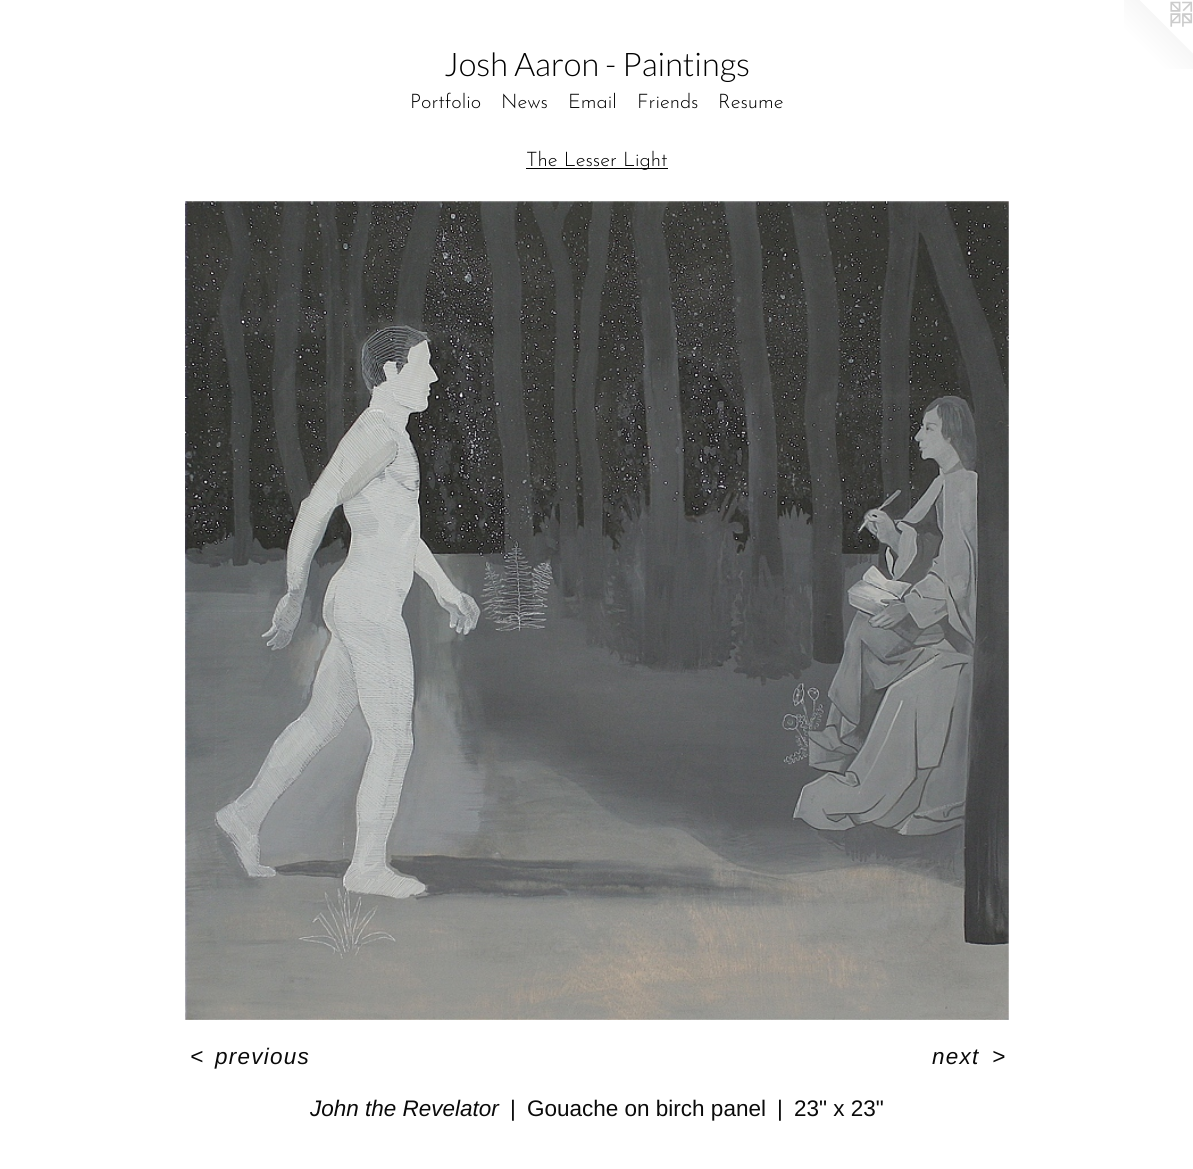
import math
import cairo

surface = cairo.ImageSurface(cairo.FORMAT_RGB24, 1193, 1169)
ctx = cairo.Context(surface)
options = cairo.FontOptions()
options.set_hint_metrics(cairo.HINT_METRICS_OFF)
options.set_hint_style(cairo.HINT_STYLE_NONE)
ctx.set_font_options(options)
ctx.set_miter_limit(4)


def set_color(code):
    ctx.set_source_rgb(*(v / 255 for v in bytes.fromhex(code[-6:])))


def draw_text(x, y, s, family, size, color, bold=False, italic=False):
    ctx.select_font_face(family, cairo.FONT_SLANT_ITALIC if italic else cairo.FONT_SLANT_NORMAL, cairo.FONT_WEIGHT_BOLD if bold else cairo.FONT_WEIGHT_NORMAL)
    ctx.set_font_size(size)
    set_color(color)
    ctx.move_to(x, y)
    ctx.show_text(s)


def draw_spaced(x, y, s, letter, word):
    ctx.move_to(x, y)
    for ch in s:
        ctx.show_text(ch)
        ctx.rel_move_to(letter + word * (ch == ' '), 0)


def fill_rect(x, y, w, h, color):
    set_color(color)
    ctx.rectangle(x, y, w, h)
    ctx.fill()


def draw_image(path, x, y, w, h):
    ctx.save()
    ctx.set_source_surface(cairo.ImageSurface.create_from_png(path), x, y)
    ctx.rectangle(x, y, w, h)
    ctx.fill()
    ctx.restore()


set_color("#ffffff")
ctx.paint()
draw_text(444, 76, "Josh Aaron - Paintings", "Lato Light", 32.5, "#000000")
draw_image("assets/img1.png", 1124, 0, 69, 69)
draw_text(410, 108, "Portfolio", "Josefin Sans Thin", 20, "#000000")
draw_text(501, 108, "News", "Josefin Sans Thin", 20, "#000000")
draw_text(568, 108, "Email", "Josefin Sans Thin", 20, "#000000")
draw_text(637, 108, "Friends", "Josefin Sans Thin", 20, "#000000")
draw_text(718, 108, "Resume", "Josefin Sans Thin", 20, "#000000")
fill_rect(526, 168, 142, 1, "#000000")
draw_text(526, 166, "The Lesser Light", "Josefin Sans Thin", 20, "#000000")
draw_image("assets/img2.png", 185, 201, 824, 819)
ctx.select_font_face("Liberation Sans", cairo.FONT_SLANT_ITALIC)
ctx.set_font_size(22.5)
set_color("#0a0a0a")
draw_spaced(190, 1064, "<", 1.25, 0)
draw_spaced(215, 1064, "previous", 1.25, 0)
draw_spaced(932, 1064, "next", 1.25, 0)
draw_spaced(992, 1064, ">", 1.25, 0)
draw_text(310, 1116, "John the Revelator", "Liberation Sans", 22.5, "#0a0a0a", italic=True)
draw_text(510, 1116, "|", "Liberation Sans", 22.5, "#0a0a0a")
draw_text(527, 1116, "Gouache on birch panel", "Liberation Sans", 22.5, "#0a0a0a")
draw_text(777, 1116, "|", "Liberation Sans", 22.5, "#0a0a0a")
draw_text(794, 1116, "23\" x 23\"", "Liberation Sans", 22.5, "#0a0a0a")
surface.write_to_png("output.png")
